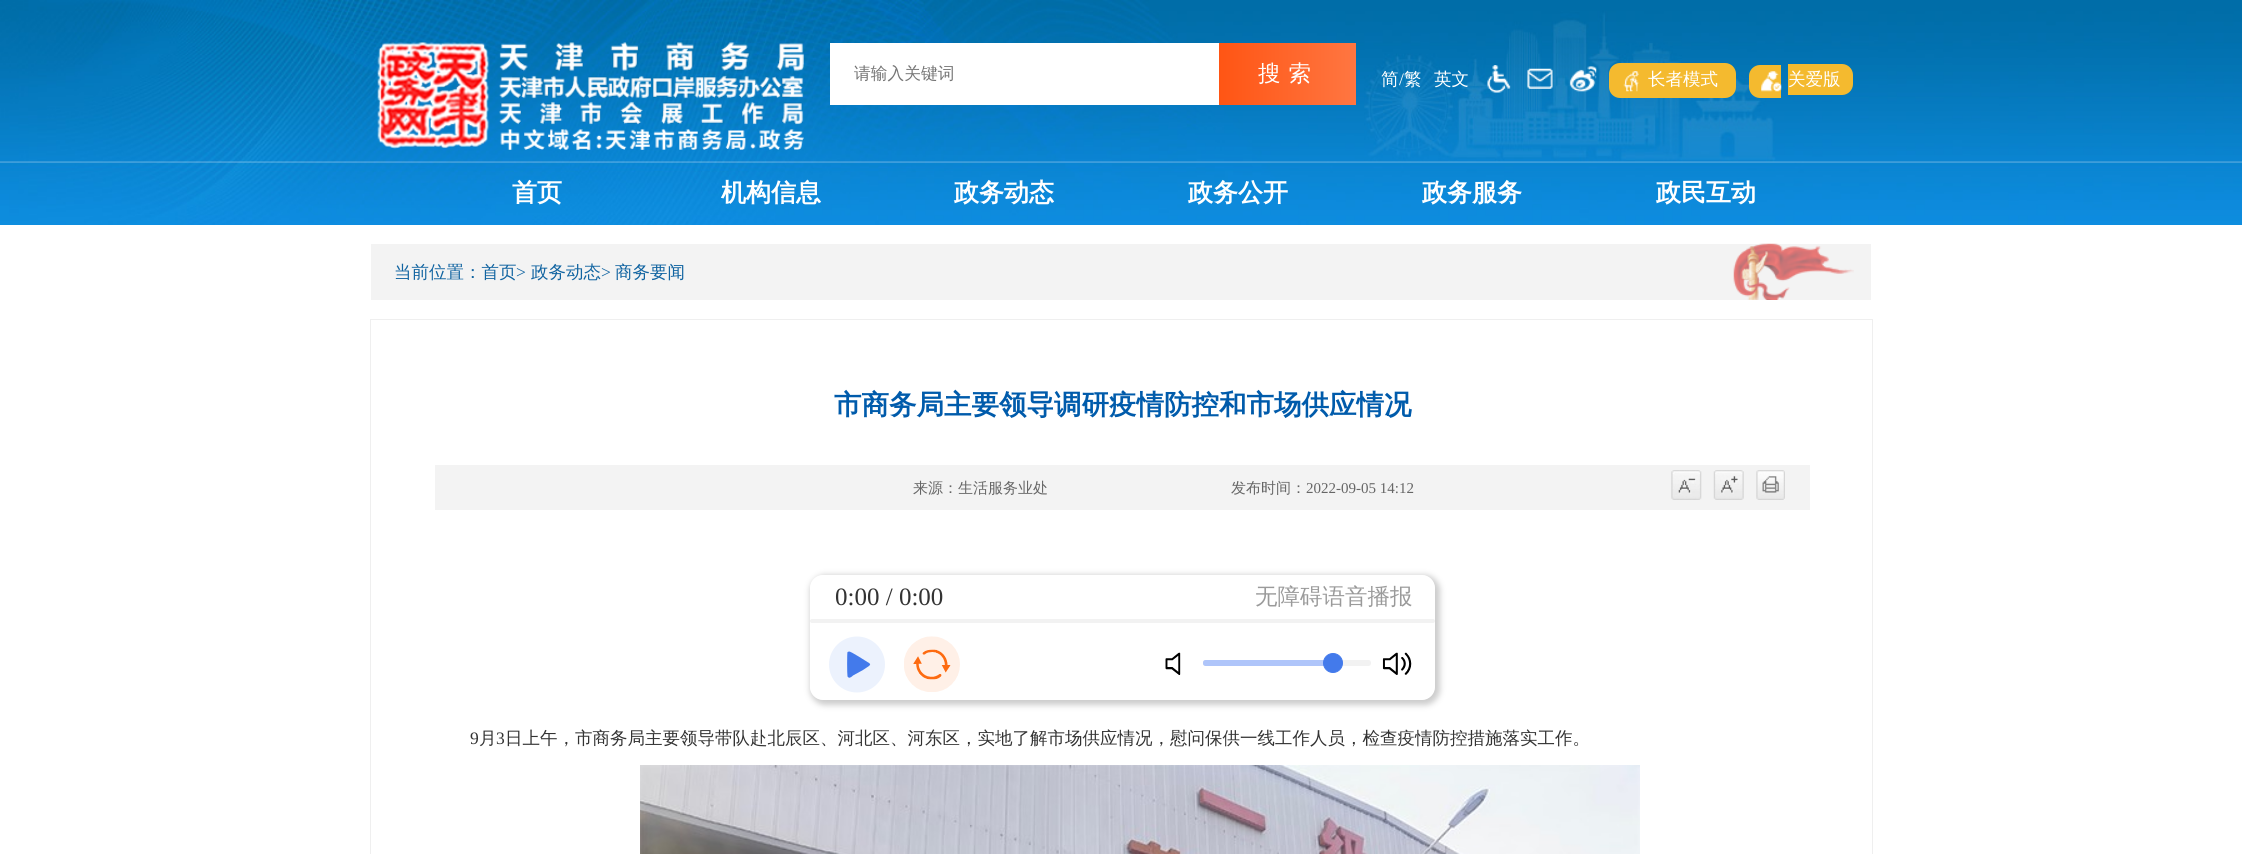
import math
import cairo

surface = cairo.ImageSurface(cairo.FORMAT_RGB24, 2242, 854)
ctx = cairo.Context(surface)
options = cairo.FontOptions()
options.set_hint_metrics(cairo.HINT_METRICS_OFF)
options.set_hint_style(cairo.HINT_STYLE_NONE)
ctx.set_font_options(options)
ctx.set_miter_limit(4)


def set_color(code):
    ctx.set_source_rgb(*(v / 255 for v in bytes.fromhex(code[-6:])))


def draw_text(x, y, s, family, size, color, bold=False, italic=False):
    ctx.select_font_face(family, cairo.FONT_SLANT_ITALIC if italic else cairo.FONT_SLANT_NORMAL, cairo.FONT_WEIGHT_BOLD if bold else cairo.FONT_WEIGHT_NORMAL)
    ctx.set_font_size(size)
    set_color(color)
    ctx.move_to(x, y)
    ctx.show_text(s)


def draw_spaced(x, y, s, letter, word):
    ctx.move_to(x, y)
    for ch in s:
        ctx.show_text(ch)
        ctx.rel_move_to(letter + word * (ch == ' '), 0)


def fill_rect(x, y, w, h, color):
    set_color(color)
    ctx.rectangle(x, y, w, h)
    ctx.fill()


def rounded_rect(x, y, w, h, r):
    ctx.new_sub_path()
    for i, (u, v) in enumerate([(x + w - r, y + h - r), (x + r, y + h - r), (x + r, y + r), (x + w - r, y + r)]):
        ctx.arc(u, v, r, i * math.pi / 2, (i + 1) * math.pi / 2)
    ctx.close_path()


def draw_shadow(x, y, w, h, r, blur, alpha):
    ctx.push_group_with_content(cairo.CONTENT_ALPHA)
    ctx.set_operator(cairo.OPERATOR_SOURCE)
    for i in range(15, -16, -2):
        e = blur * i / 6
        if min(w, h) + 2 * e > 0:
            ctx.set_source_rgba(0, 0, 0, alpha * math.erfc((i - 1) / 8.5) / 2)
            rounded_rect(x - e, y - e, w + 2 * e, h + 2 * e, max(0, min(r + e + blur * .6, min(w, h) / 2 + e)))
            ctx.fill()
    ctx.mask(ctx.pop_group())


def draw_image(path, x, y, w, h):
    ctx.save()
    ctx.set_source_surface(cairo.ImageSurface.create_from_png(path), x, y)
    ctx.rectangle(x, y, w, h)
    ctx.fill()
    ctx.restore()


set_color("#ffffff")
ctx.paint()
draw_image("assets/img1.png", 0, 0, 2242, 225)
draw_image("assets/img2.png", 377, 42, 427, 108)
fill_rect(830, 43, 389, 62, "#ffffff")
draw_text(854, 79, "请输入关键词", "WenQuanYi Zen Hei Medium", 16.75, "#757575")
gradient = cairo.LinearGradient(1219, 74, 1356, 74)
gradient.add_color_stop_rgba(0, 1, 0.333, 0.078, 1)
gradient.add_color_stop_rgba(1, 1, 0.463, 0.255, 1)
ctx.set_source(gradient)
ctx.rectangle(1219, 43, 137, 62)
ctx.fill()
ctx.set_font_size(22.5)
set_color("#ffffff")
draw_spaced(1258, 81, "搜索", 8, 0)
draw_text(1381, 85, "简", "WenQuanYi Zen Hei Medium", 17.5, "#ffffff")
draw_text(1399, 85, "/", "Liberation Serif", 17.5, "#ffffff")
draw_text(1404, 85, "繁", "WenQuanYi Zen Hei Medium", 17.5, "#ffffff")
draw_text(1434, 85, "英文", "WenQuanYi Zen Hei Medium", 17.5, "#ffffff")
draw_image("assets/img3.png", 1487, 65, 24, 28)
draw_image("assets/img4.png", 1527, 68, 26, 21)
draw_image("assets/img5.png", 1569, 66, 28, 26)
set_color("#f4ba2f")
rounded_rect(1609, 63, 127, 35, 11)
ctx.fill()
draw_image("assets/img6.png", 1623, 71, 16, 21)
draw_text(1648, 85, "长者模式", "WenQuanYi Zen Hei Medium", 17.5, "#ffffff")
set_color("#f4ba2f")
ctx.new_path()
ctx.move_to(1760, 65)
ctx.line_to(1781, 65)
ctx.line_to(1781, 98)
ctx.line_to(1760, 98)
ctx.curve_to(1754, 98, 1749, 93, 1749, 87)
ctx.line_to(1749, 76)
ctx.curve_to(1749, 70, 1754, 65, 1760, 65)
ctx.close_path()
ctx.fill()
draw_image("assets/img7.png", 1761, 71, 21, 21)
ctx.new_path()
ctx.move_to(1788, 64)
ctx.line_to(1842, 64)
ctx.curve_to(1848, 64, 1853, 69, 1853, 75)
ctx.line_to(1853, 84)
ctx.curve_to(1853, 90, 1848, 95, 1842, 95)
ctx.line_to(1788, 95)
ctx.close_path()
ctx.fill()
draw_text(1788, 85, "关爱版", "WenQuanYi Zen Hei Medium", 17.5, "#ffffff")
draw_text(512, 201, "首页", "WenQuanYi Zen Hei", 25, "#ffffff", bold=True)
draw_text(721, 201, "机构信息", "WenQuanYi Zen Hei", 25, "#ffffff", bold=True)
draw_text(954, 201, "政务动态", "WenQuanYi Zen Hei", 25, "#ffffff", bold=True)
draw_text(1188, 201, "政务公开", "WenQuanYi Zen Hei", 25, "#ffffff", bold=True)
draw_text(1422, 201, "政务服务", "WenQuanYi Zen Hei", 25, "#ffffff", bold=True)
draw_text(1656, 201, "政民互动", "WenQuanYi Zen Hei", 25, "#ffffff", bold=True)
fill_rect(371, 244, 1500, 56, "#f3f3f3")
draw_image("assets/img8.png", 1733, 243, 121, 57)
draw_text(394, 278, "当前位置：首页", "WenQuanYi Zen Hei Medium", 17.5, "#1164a1")
draw_text(516, 278, ">", "Liberation Serif", 17.5, "#1164a1")
draw_text(531, 278, "政务动态", "WenQuanYi Zen Hei Medium", 17.5, "#1164a1")
draw_text(601, 278, ">", "Liberation Serif", 17.5, "#1164a1")
draw_text(615, 278, "商务要闻", "WenQuanYi Zen Hei Medium", 17.5, "#1164a1")
ctx.rectangle(370.5, 319.5, 1502, 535)
set_color("#efefef")
ctx.set_line_width(1)
ctx.stroke()
draw_text(834, 414, "市商务局主要领导调研疫情防控和市场供应情况", "WenQuanYi Zen Hei", 27.5, "#005bab", bold=True)
fill_rect(435, 465, 1375, 45, "#f3f3f3")
draw_text(913, 493, "来源：生活服务业处", "WenQuanYi Zen Hei Medium", 15, "#666666")
draw_text(1231, 493, "发布时间：", "WenQuanYi Zen Hei Medium", 15, "#666666")
draw_text(1306, 493, "2022-09-05 14:12", "Liberation Serif", 15, "#666666")
draw_image("assets/img9.png", 1671, 470, 31, 30)
draw_image("assets/img10.png", 1713, 470, 31, 30)
draw_image("assets/img11.png", 1756, 470, 29, 30)
ctx.save()
ctx.set_fill_rule(cairo.FILL_RULE_EVEN_ODD)
ctx.new_path()
ctx.move_to(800, 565)
ctx.line_to(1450, 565)
ctx.line_to(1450, 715)
ctx.line_to(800, 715)
ctx.close_path()
ctx.move_to(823, 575)
ctx.line_to(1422, 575)
ctx.curve_to(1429, 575, 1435, 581, 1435, 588)
ctx.line_to(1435, 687)
ctx.curve_to(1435, 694, 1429, 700, 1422, 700)
ctx.line_to(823, 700)
ctx.curve_to(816, 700, 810, 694, 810, 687)
ctx.line_to(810, 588)
ctx.curve_to(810, 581, 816, 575, 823, 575)
ctx.close_path()
ctx.clip()
set_color("#cccccc")
draw_shadow(810, 575, 630, 130, 15, 3, 1)
ctx.restore()
draw_text(835, 605, "0:00 / 0:00", "Liberation Serif", 25, "#333333")
draw_text(1255, 604, "无障碍语音播报", "WenQuanYi Zen Hei Medium", 22.5, "#9a9a9a")
set_color("#f2f2f2")
rounded_rect(810, 619, 625, 4, 2)
ctx.fill()
set_color("#ecf2fd")
ctx.arc(857, 664.5, 28, 0, 2 * math.pi)
ctx.fill()
set_color("#437aeb")
ctx.set_fill_rule(cairo.FILL_RULE_EVEN_ODD)
ctx.new_path()
ctx.move_to(869, 663)
ctx.curve_to(866.5, 661.5, 850.5, 651, 849, 651.5)
ctx.line_to(847.5, 652)
ctx.curve_to(847, 653, 847, 674, 847.5, 676.5)
ctx.line_to(848.5, 677.5)
ctx.curve_to(850, 678.5, 852.5, 676, 853, 675.5)
ctx.line_to(863, 670)
ctx.curve_to(867, 667, 872.5, 665, 869, 663)
ctx.close_path()
ctx.fill()
draw_image("assets/img12.png", 904, 636, 56, 56)
draw_image("assets/img13.png", 1165, 652, 16, 23)
set_color("#f2f2f2")
rounded_rect(1203, 660, 168, 6, 2.5)
ctx.fill()
set_color("#afc5fa")
rounded_rect(1203, 660, 126, 6, 2.5)
ctx.fill()
set_color("#437aeb")
ctx.arc(1333, 663, 9.5, 0, 2 * math.pi)
ctx.fill_preserve()
ctx.stroke()
draw_image("assets/img14.png", 1382, 652, 30, 23)
draw_text(470, 744, "9", "Liberation Serif", 17.5, "#333333")
draw_text(479, 744, "月", "WenQuanYi Zen Hei Medium", 17.5, "#333333")
draw_text(496, 744, "3", "Liberation Serif", 17.5, "#333333")
draw_text(505, 744, "日上午，市商务局主要领导带队赴北辰区、河北区、河东区，实地了解市场供应情况，慰问保供一线工作人员，检查疫情防控措施落实工作。", "WenQuanYi Zen Hei Medium", 17.5, "#333333")
draw_image("assets/img15.png", 640, 765, 1000, 89)
surface.write_to_png("output.png")
